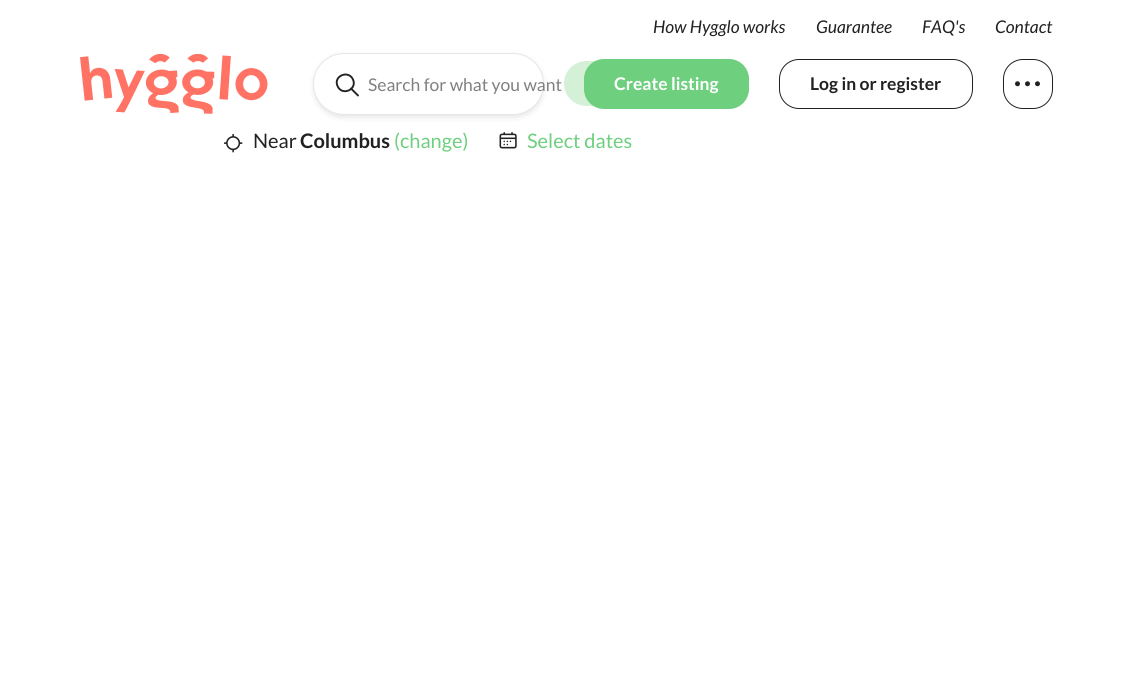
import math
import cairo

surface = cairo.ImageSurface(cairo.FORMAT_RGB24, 1132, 693)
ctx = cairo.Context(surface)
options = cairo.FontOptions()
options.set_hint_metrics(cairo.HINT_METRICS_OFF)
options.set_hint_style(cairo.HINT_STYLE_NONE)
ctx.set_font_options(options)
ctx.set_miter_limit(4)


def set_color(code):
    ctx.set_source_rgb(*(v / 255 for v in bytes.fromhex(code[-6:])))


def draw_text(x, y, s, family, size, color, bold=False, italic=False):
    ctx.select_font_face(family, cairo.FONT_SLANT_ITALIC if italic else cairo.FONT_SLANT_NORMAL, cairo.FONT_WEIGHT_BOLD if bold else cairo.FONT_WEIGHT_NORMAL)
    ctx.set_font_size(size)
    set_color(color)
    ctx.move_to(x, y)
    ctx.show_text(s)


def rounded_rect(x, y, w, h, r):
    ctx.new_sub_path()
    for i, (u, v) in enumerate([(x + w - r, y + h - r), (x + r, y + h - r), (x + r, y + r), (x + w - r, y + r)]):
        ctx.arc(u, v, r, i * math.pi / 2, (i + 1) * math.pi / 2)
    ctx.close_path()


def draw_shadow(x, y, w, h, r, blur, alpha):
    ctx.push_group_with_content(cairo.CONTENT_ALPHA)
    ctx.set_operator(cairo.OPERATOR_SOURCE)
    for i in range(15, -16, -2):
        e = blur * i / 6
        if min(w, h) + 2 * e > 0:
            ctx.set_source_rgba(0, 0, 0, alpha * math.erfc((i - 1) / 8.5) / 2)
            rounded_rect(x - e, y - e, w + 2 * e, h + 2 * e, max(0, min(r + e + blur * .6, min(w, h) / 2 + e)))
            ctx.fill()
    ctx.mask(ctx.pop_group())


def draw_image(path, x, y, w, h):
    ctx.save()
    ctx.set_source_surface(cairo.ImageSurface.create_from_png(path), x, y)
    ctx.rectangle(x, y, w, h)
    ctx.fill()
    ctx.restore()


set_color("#ffffff")
ctx.paint()
draw_text(653, 33, "How Hygglo works", "Lato", 17.5, "#212121", italic=True)
draw_text(816, 33, "Guarantee", "Lato", 17.5, "#212121", italic=True)
draw_text(922, 33, "FAQ's", "Lato", 17.5, "#212121", italic=True)
draw_text(995, 33, "Contact", "Lato", 17.5, "#212121", italic=True)
draw_image("assets/img1.png", 80, 54, 188, 60)
set_color("#1a1a1a")
draw_shadow(313, 55, 231, 63, 31.5, 2.5, 0.1)
set_color("#ffffff")
rounded_rect(313.5, 53.5, 230, 61, 30.5)
ctx.fill_preserve()
set_color("#e6e6e6")
ctx.set_line_width(1)
ctx.stroke()
ctx.new_path()
ctx.move_to(337.5, 86)
ctx.curve_to(342, 96.5, 357.5, 89.5, 353, 79.5)
ctx.curve_to(348.5, 69.5, 333, 76, 337.5, 86)
ctx.close_path()
ctx.move_to(351, 88.5)
ctx.line_to(358, 95.5)
set_color("#212121")
ctx.set_line_width(1.9)
ctx.set_line_cap(cairo.LINE_CAP_ROUND)
ctx.set_line_join(cairo.LINE_JOIN_ROUND)
ctx.stroke()
draw_text(368, 91, "Search for what you want", "Lato", 17.5, "#808080")
set_color("#d4f1d8")
rounded_rect(564, 61, 120, 45, 22.5)
ctx.fill()
draw_image("assets/img2.png", 224, 134, 19, 19)
draw_text(253, 148, "Near", "Lato", 20, "#212121")
draw_text(300, 148, "Columbus", "Lato", 20, "#212121", bold=True)
draw_text(394, 148, "(change)", "Lato", 20, "#6ecf7e")
draw_image("assets/img3.png", 499, 132, 18, 17)
draw_text(527, 148, "Select dates", "Lato", 20, "#6ecf7e")
rounded_rect(584, 59, 165, 50, 20)
ctx.fill()
draw_text(614, 90, "Create listing", "Lato", 17.5, "#ffffff", bold=True)
rounded_rect(779.5, 59.5, 193, 49, 19.5)
set_color("#212121")
ctx.set_line_width(1)
ctx.set_line_cap(cairo.LINE_CAP_BUTT)
ctx.set_line_join(cairo.LINE_JOIN_MITER)
ctx.stroke()
draw_text(810, 90, "Log in or register", "Lato", 17.5, "#212121", bold=True)
rounded_rect(1003.5, 59.5, 49, 49, 19.5)
ctx.stroke()
draw_image("assets/img4.png", 1015, 81, 25, 6)
surface.write_to_png("output.png")
